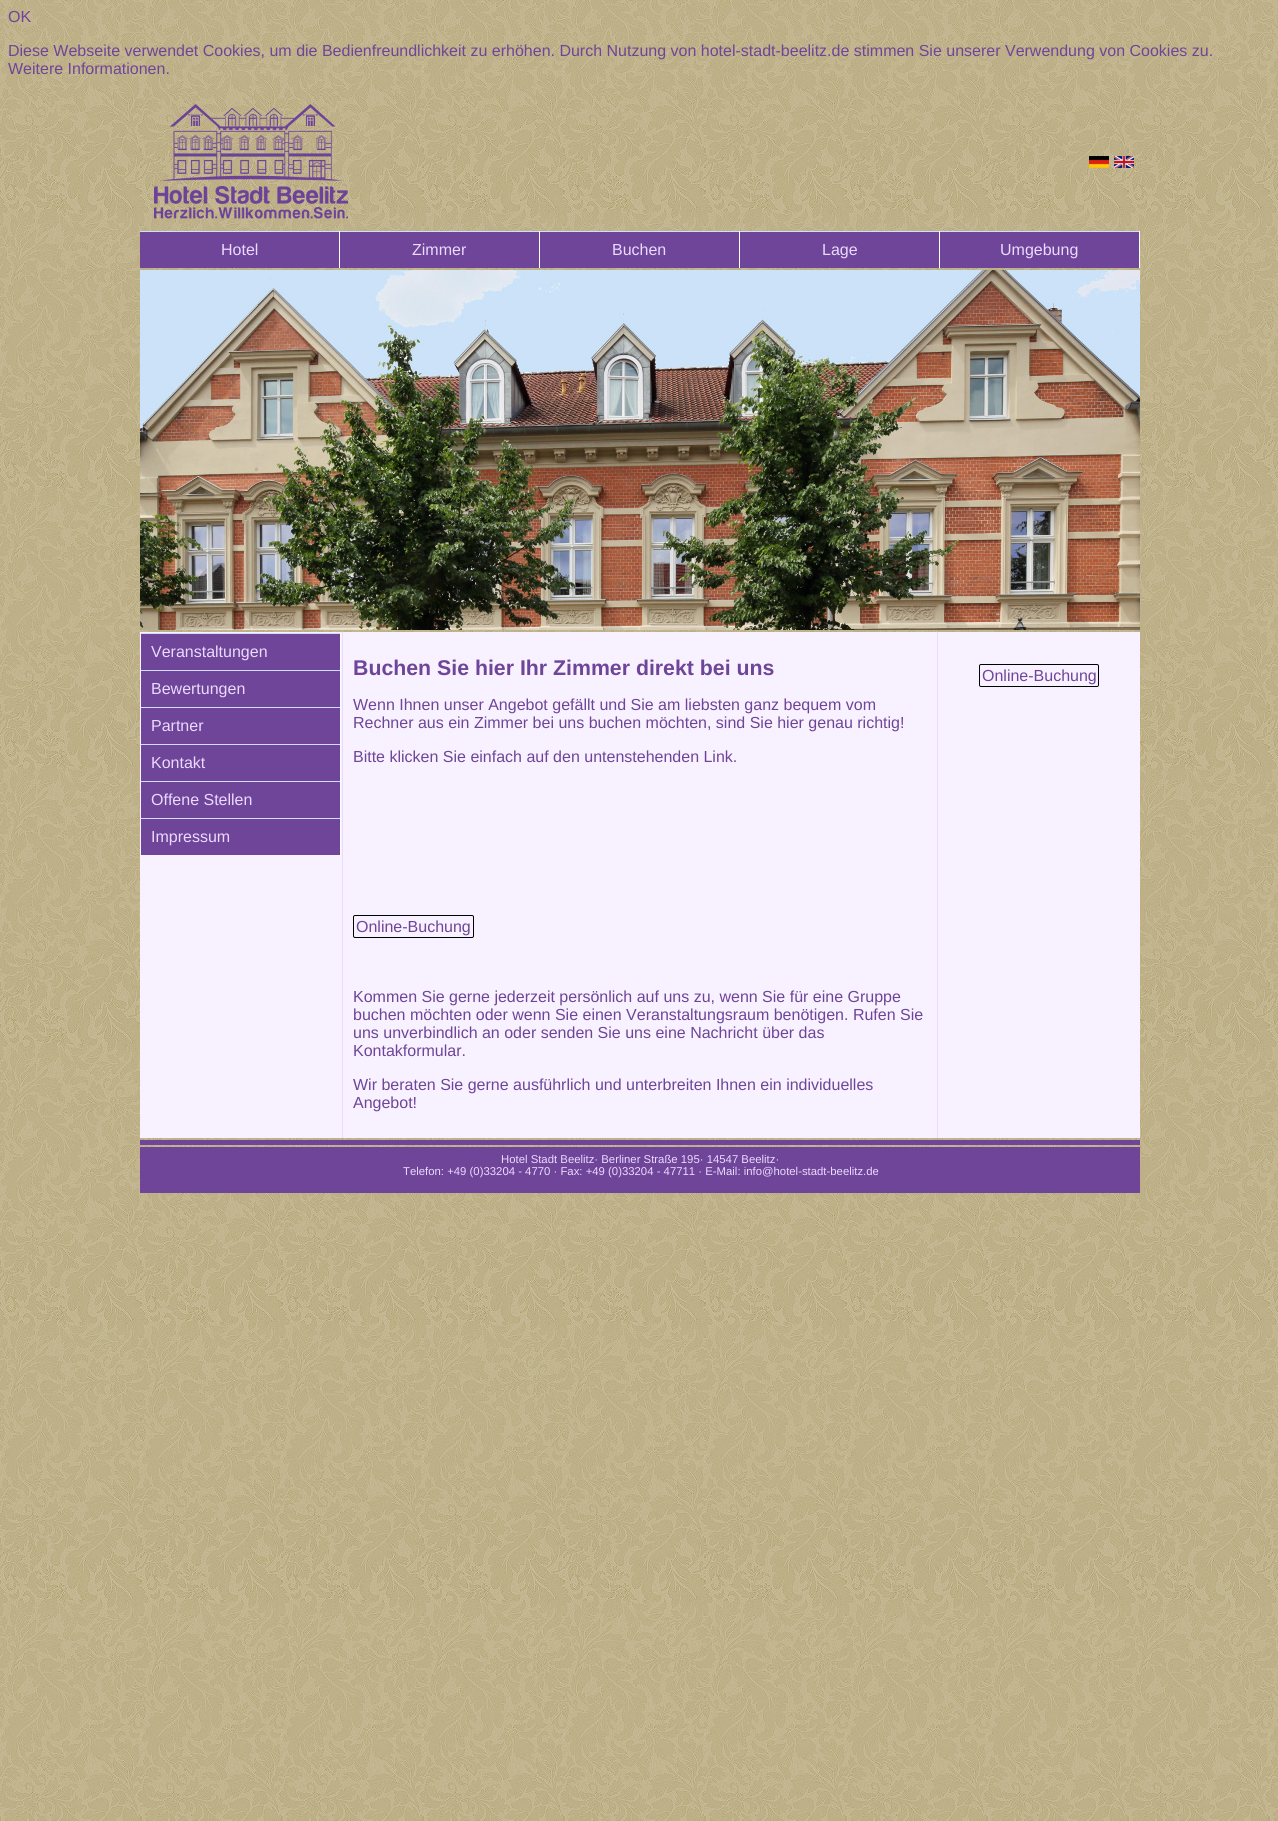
import math
import cairo

surface = cairo.ImageSurface(cairo.FORMAT_RGB24, 1278, 1821)
ctx = cairo.Context(surface)
options = cairo.FontOptions()
options.set_hint_metrics(cairo.HINT_METRICS_OFF)
options.set_hint_style(cairo.HINT_STYLE_NONE)
ctx.set_font_options(options)
ctx.set_miter_limit(4)


def set_color(code):
    ctx.set_source_rgb(*(v / 255 for v in bytes.fromhex(code[-6:])))


def draw_text(x, y, s, family, size, color, bold=False, italic=False):
    ctx.select_font_face(family, cairo.FONT_SLANT_ITALIC if italic else cairo.FONT_SLANT_NORMAL, cairo.FONT_WEIGHT_BOLD if bold else cairo.FONT_WEIGHT_NORMAL)
    ctx.set_font_size(size)
    set_color(color)
    ctx.move_to(x, y)
    ctx.show_text(s)


def fill_rect(x, y, w, h, color):
    set_color(color)
    ctx.rectangle(x, y, w, h)
    ctx.fill()


def rounded_rect(x, y, w, h, r):
    ctx.new_sub_path()
    for i, (u, v) in enumerate([(x + w - r, y + h - r), (x + r, y + h - r), (x + r, y + r), (x + w - r, y + r)]):
        ctx.arc(u, v, r, i * math.pi / 2, (i + 1) * math.pi / 2)
    ctx.close_path()


def draw_image(path, x, y, w, h):
    ctx.save()
    ctx.set_source_surface(cairo.ImageSurface.create_from_png(path), x, y)
    ctx.rectangle(x, y, w, h)
    ctx.fill()
    ctx.restore()


set_color("#ffffff")
ctx.paint()
draw_image("assets/img1.png", 0, 0, 1278, 1821)
draw_text(8, 22, "OK", "Liberation Sans", 16, "#6e4598")
draw_text(8, 56, "Diese Webseite verwendet Cookies, um die Bedienfreundlichkeit zu erhöhen. Durch Nutzung von hotel-stadt-beelitz.de stimmen Sie unserer Verwendung von Cookies zu.", "Liberation Sans", 16, "#6e4598")
draw_text(8, 74, "Weitere Informationen.", "Liberation Sans", 16, "#6e4598")
draw_image("assets/img2.png", 154, 104, 194, 115)
draw_image("assets/img3.png", 1089, 156, 20, 12)
draw_image("assets/img4.png", 1114, 156, 20, 12)
fill_rect(140, 232, 199, 36, "#6e4598")
fill_rect(140, 231, 1000, 1, "#cfdeff")
fill_rect(339, 231, 1, 37, "#ffffff")
draw_text(221, 255, "Hotel", "Liberation Sans", 16, "#ecd9ff")
fill_rect(340, 232, 199, 36, "#6e4598")
fill_rect(539, 231, 1, 37, "#ffffff")
draw_text(412, 255, "Zimmer", "Liberation Sans", 16, "#ecd9ff")
fill_rect(540, 232, 199, 36, "#6e4598")
fill_rect(739, 231, 1, 37, "#ffffff")
draw_text(612, 255, "Buchen", "Liberation Sans", 16, "#ecd9ff")
fill_rect(740, 232, 199, 36, "#6e4598")
fill_rect(939, 231, 1, 37, "#ffffff")
draw_text(822, 255, "Lage", "Liberation Sans", 16, "#ecd9ff")
fill_rect(940, 232, 199, 36, "#6e4598")
fill_rect(1139, 231, 1, 37, "#ffffff")
draw_text(1000, 255, "Umgebung", "Liberation Sans", 16, "#ecd9ff")
draw_image("assets/img5.png", 140, 270, 1000, 360)
fill_rect(140, 632, 1000, 506, "#f8f1ff")
fill_rect(342, 632, 1, 506, "#ecd9ff")
fill_rect(141, 634, 199, 36, "#6e4598")
fill_rect(141, 633, 200, 1, "#cfdeff")
fill_rect(340, 633, 1, 37, "#ffffff")
draw_text(151, 657, "Veranstaltungen", "Liberation Sans", 16, "#ecd9ff")
fill_rect(141, 671, 199, 36, "#6e4598")
fill_rect(141, 670, 200, 1, "#cfdeff")
fill_rect(340, 670, 1, 37, "#ffffff")
draw_text(151, 694, "Bewertungen", "Liberation Sans", 16, "#ecd9ff")
fill_rect(141, 708, 199, 36, "#6e4598")
fill_rect(141, 707, 200, 1, "#cfdeff")
fill_rect(340, 707, 1, 37, "#ffffff")
draw_text(151, 731, "Partner", "Liberation Sans", 16, "#ecd9ff")
fill_rect(141, 745, 199, 36, "#6e4598")
fill_rect(141, 744, 200, 1, "#cfdeff")
fill_rect(340, 744, 1, 37, "#ffffff")
draw_text(151, 768, "Kontakt", "Liberation Sans", 16, "#ecd9ff")
fill_rect(141, 782, 199, 36, "#6e4598")
fill_rect(141, 781, 200, 1, "#cfdeff")
fill_rect(340, 781, 1, 37, "#ffffff")
draw_text(151, 805, "Offene Stellen", "Liberation Sans", 16, "#ecd9ff")
fill_rect(141, 819, 199, 36, "#6e4598")
fill_rect(141, 818, 200, 1, "#cfdeff")
fill_rect(340, 818, 1, 37, "#ffffff")
draw_text(151, 842, "Impressum", "Liberation Sans", 16, "#ecd9ff")
draw_text(353, 675, "Buchen Sie hier Ihr Zimmer direkt bei uns", "Liberation Sans", 21.3, "#6e4598", bold=True)
draw_text(353, 710, "Wenn Ihnen unser Angebot gefällt und Sie am liebsten ganz bequem vom", "Liberation Sans", 16, "#6e4598")
draw_text(353, 728, "Rechner aus ein Zimmer bei uns buchen möchten, sind Sie hier genau richtig!", "Liberation Sans", 16, "#6e4598")
draw_text(353, 762, "Bitte klicken Sie einfach auf den untenstehenden Link.", "Liberation Sans", 16, "#6e4598")
rounded_rect(353.5, 915.5, 120, 22, 1.5)
set_color("#000000")
ctx.set_line_width(1)
ctx.stroke()
draw_text(356, 932, "Online-Buchung", "Liberation Sans", 16, "#6e4598")
draw_text(353, 1002, "Kommen Sie gerne jederzeit persönlich auf uns zu, wenn Sie für eine Gruppe", "Liberation Sans", 16, "#6e4598")
draw_text(353, 1020, "buchen möchten oder wenn Sie einen Veranstaltungsraum benötigen. Rufen Sie", "Liberation Sans", 16, "#6e4598")
draw_text(353, 1038, "uns unverbindlich an oder senden Sie uns eine Nachricht über das", "Liberation Sans", 16, "#6e4598")
draw_text(353, 1056, "Kontakformular.", "Liberation Sans", 16, "#6e4598")
draw_text(353, 1090, "Wir beraten Sie gerne ausführlich und unterbreiten Ihnen ein individuelles", "Liberation Sans", 16, "#6e4598")
draw_text(353, 1108, "Angebot!", "Liberation Sans", 16, "#6e4598")
fill_rect(937, 632, 1, 506, "#ecd9ff")
rounded_rect(979.5, 664.5, 119, 22, 1.5)
set_color("#000000")
ctx.stroke()
draw_text(982, 681, "Online-Buchung", "Liberation Sans", 16, "#6e4598")
fill_rect(140, 1140, 1000, 5, "#6e4598")
fill_rect(140, 1147, 1000, 46, "#6e4598")
draw_text(501, 1163, "Hotel Stadt Beelitz· Berliner Straße 195· 14547 Beelitz·", "Liberation Sans", 11.35, "#ecd9ff")
draw_text(403, 1175, "Telefon: +49 (0)33204 - 4770 · Fax: +49 (0)33204 - 47711 · E-Mail: info@hotel-stadt-beelitz.de", "Liberation Sans", 11.35, "#ecd9ff")
surface.write_to_png("output.png")
